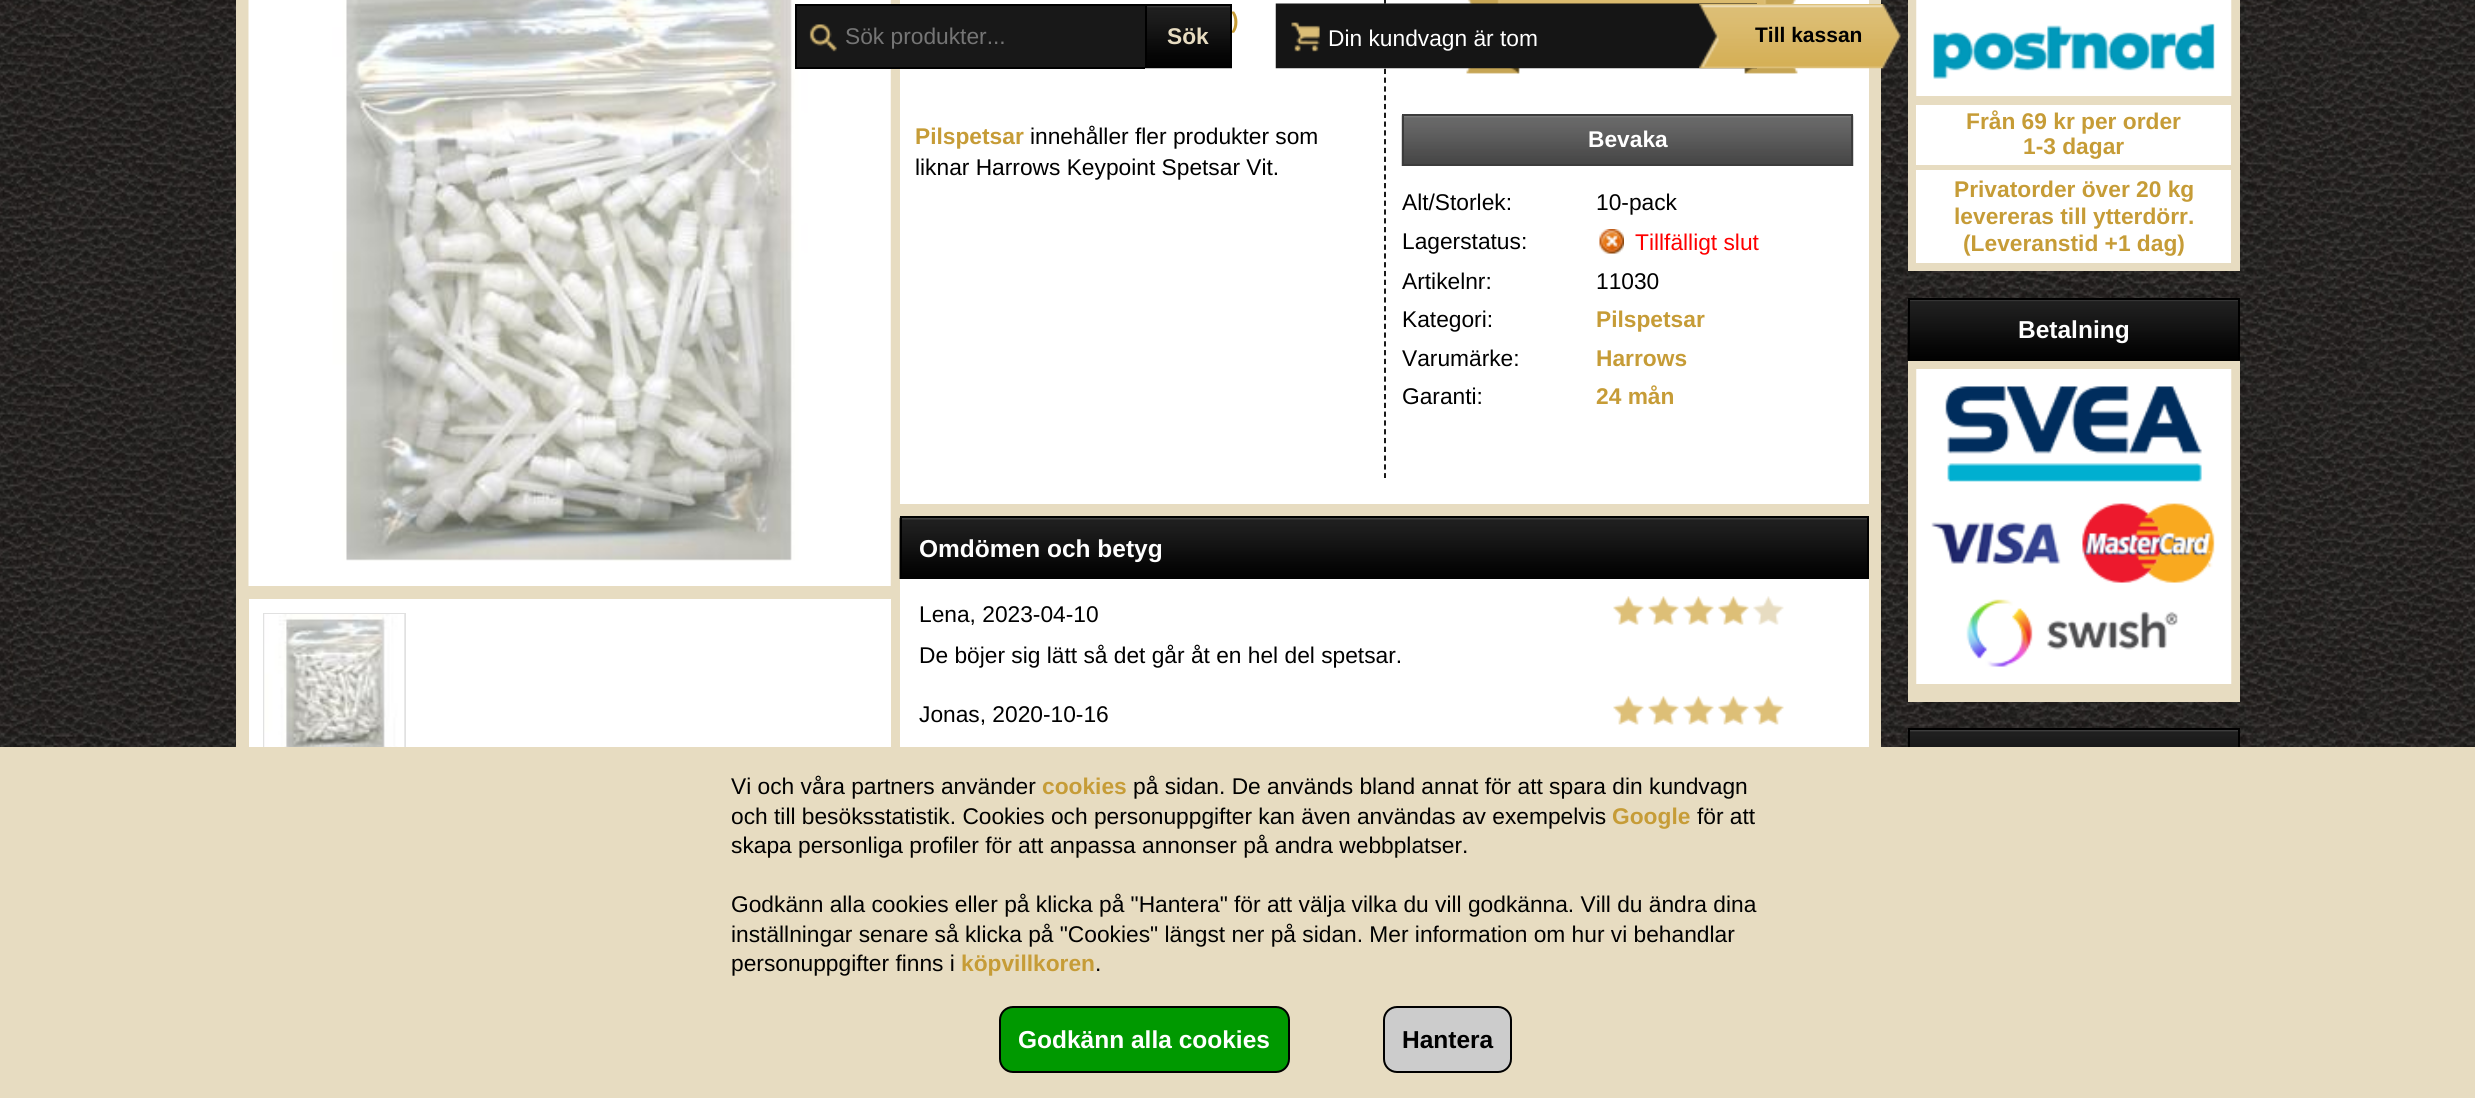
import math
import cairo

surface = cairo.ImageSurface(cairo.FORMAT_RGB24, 2475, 1098)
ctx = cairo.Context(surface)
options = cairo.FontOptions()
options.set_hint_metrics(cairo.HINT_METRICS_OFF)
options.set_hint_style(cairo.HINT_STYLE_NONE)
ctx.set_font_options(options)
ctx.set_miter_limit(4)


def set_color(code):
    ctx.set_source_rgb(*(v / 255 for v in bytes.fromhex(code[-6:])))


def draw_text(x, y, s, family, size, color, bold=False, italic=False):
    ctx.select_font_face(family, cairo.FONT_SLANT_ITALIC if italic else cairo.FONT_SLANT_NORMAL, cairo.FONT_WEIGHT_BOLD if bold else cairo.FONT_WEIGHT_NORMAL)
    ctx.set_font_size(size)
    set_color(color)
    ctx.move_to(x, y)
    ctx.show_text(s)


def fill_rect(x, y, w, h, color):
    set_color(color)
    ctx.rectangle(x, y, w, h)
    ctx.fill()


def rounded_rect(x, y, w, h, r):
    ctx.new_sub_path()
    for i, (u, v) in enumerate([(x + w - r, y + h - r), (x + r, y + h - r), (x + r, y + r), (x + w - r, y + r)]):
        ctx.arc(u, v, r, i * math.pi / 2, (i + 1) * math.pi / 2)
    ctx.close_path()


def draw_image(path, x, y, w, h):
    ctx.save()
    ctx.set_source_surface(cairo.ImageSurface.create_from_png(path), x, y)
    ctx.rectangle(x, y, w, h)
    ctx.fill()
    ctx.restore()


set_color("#ffffff")
ctx.paint()
draw_image("assets/img1.png", 0, 0, 2475, 747)
fill_rect(236, 0, 1645, 747, "#e7dcc1")
draw_image("assets/img2.png", 248, 0, 643, 586)
fill_rect(249, 599, 642, 148, "#ffffff")
ctx.rectangle(264, 614, 141, 150)
set_color("#e1e1e1")
ctx.stroke()
draw_image("assets/img3.png", 264, 614, 141, 133)
fill_rect(900, 0, 969, 504, "#ffffff")
draw_text(1231, 28, ")", "Liberation Sans", 22.75, "#c69c37", bold=True)
draw_text(915, 144, "Pilspetsar", "Liberation Sans", 22.75, "#c69c37", bold=True)
draw_text(1030, 144, "innehåller fler produkter som", "Liberation Sans", 22.75, "#000000")
ctx.new_path()
ctx.move_to(1385, -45.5)
ctx.line_to(1385, 478)
ctx.set_line_width(1.8)
ctx.set_dash([5.25, 3.54])
ctx.stroke()
draw_image("assets/img4.png", 1466, 0, 332, 74)
draw_image("assets/img5.png", 1401, 115, 453, 51)
ctx.rectangle(1403, 115, 449, 50)
set_color("#3c3c3c")
ctx.set_line_width(2)
ctx.set_dash([])
ctx.stroke()
draw_text(1588, 147, "Bevaka", "Liberation Sans", 22.75, "#ffffff", bold=True)
draw_text(1402, 210, "Alt/Storlek:", "Liberation Sans", 22.75, "#000000")
draw_text(1596, 210, "10-pack", "Liberation Sans", 22.75, "#000000")
draw_text(1402, 249, "Lagerstatus:", "Liberation Sans", 22.75, "#000000")
draw_image("assets/img6.png", 1599, 229, 25, 25)
draw_text(1635, 250, "Tillfälligt slut", "Liberation Sans", 22.75, "#ff0000")
draw_text(1402, 289, "Artikelnr:", "Liberation Sans", 22.75, "#000000")
draw_text(1596, 289, "11030", "Liberation Sans", 22.75, "#000000")
draw_text(1402, 327, "Kategori:", "Liberation Sans", 22.75, "#000000")
draw_text(1596, 327, "Pilspetsar", "Liberation Sans", 22.75, "#c69c37", bold=True)
draw_text(1402, 366, "Varumärke:", "Liberation Sans", 22.75, "#000000")
draw_text(1596, 366, "Harrows", "Liberation Sans", 22.75, "#c69c37", bold=True)
draw_text(1402, 404, "Garanti:", "Liberation Sans", 22.75, "#000000")
draw_text(1596, 404, "24 mån", "Liberation Sans", 22.75, "#c69c37", bold=True)
draw_text(915, 175, "liknar Harrows Keypoint Spetsar Vit.", "Liberation Sans", 22.75, "#000000")
draw_image("assets/img7.png", 899, 517, 968, 62)
fill_rect(900, 516, 969, 2, "#000000")
fill_rect(1867, 516, 2, 63, "#000000")
fill_rect(900, 516, 2, 63, "#000000")
draw_text(919, 557, "Omdömen och betyg", "Liberation Sans", 24.5, "#ffffff", bold=True)
fill_rect(900, 579, 969, 168, "#ffffff")
draw_text(919, 622, "Lena, 2023-04-10", "Liberation Sans", 22.75, "#000000")
draw_image("assets/img8.png", 1613, 596, 171, 29)
draw_text(919, 663, "De böjer sig lätt så det går åt en hel del spetsar.", "Liberation Sans", 22.75, "#000000")
draw_text(919, 722, "Jonas, 2020-10-16", "Liberation Sans", 22.75, "#000000")
draw_image("assets/img9.png", 1613, 695, 171, 30)
fill_rect(797, 6, 348, 61, "#181818")
draw_image("assets/img10.png", 809, 24, 28, 28)
fill_rect(795, 4, 350, 2, "#000000")
fill_rect(795, 67, 350, 2, "#000000")
fill_rect(795, 4, 2, 64, "#000000")
draw_text(845, 44, "Sök produkter...", "Liberation Sans", 22.75, "#757575")
draw_image("assets/img11.png", 1145, 6, 87, 63)
ctx.rectangle(1146, 5, 85, 62)
set_color("#000000")
ctx.stroke()
draw_text(1167, 44, "Sök", "Liberation Sans", 22.75, "#e7dcc1", bold=True)
draw_image("assets/img12.png", 1275, 3, 482, 66)
draw_text(1328, 46, "Din kundvagn är tom", "Liberation Sans", 22.75, "#ffffff")
draw_image("assets/img13.png", 1699, 4, 202, 65)
draw_text(1755, 42, "Till kassan", "Liberation Sans", 21, "#000000", bold=True)
fill_rect(1908, 0, 332, 271, "#e7dcc1")
draw_image("assets/img14.png", 1916, 0, 316, 96)
fill_rect(1916, 105, 315, 60, "#ffffff")
draw_text(1966, 129, "Från 69 kr per order", "Liberation Sans", 22.75, "#c69c37", bold=True)
draw_text(2023, 154, "1-3 dagar", "Liberation Sans", 22.75, "#c69c37", bold=True)
fill_rect(1916, 170, 315, 93, "#ffffff")
draw_text(1954, 197, "Privatorder över 20 kg", "Liberation Sans", 22.75, "#c69c37", bold=True)
draw_text(1954, 224, "levereras till ytterdörr.", "Liberation Sans", 22.75, "#c69c37", bold=True)
draw_text(1963, 251, "(Leveranstid +1 dag)", "Liberation Sans", 22.75, "#c69c37", bold=True)
fill_rect(1910, 360, 328, 1, "#000000")
draw_image("assets/img15.png", 1907, 299, 331, 62)
fill_rect(1908, 298, 332, 2, "#000000")
fill_rect(2238, 298, 2, 63, "#000000")
fill_rect(1908, 298, 2, 63, "#000000")
draw_text(2018, 338, "Betalning", "Liberation Sans", 24.5, "#ffffff", bold=True)
fill_rect(1908, 361, 332, 341, "#e7dcc1")
draw_image("assets/img16.png", 1916, 369, 316, 315)
draw_image("assets/img17.png", 1907, 729, 331, 18)
fill_rect(1908, 728, 332, 2, "#000000")
fill_rect(2238, 728, 2, 19, "#000000")
fill_rect(1908, 728, 2, 19, "#000000")
fill_rect(0, 747, 2475, 351, "#e7dcc1")
draw_text(731, 794, "Vi och våra partners använder", "Liberation Sans", 22.75, "#000000")
draw_text(1042, 794, "cookies", "Liberation Sans", 22.75, "#c69c37", bold=True)
draw_text(1133, 794, "på sidan. De används bland annat för att spara din kundvagn", "Liberation Sans", 22.75, "#000000")
draw_text(731, 824, "och till besöksstatistik. Cookies och personuppgifter kan även användas av exempelvis", "Liberation Sans", 22.75, "#000000")
draw_text(1612, 824, "Google", "Liberation Sans", 22.75, "#c69c37", bold=True)
draw_text(1697, 824, "för att", "Liberation Sans", 22.75, "#000000")
draw_text(731, 853, "skapa personliga profiler för att anpassa annonser på andra webbplatser.", "Liberation Sans", 22.75, "#000000")
draw_text(731, 912, "Godkänn alla cookies eller på klicka på \"Hantera\" för att välja vilka du vill godkänna. Vill du ändra dina", "Liberation Sans", 22.75, "#000000")
draw_text(731, 942, "inställningar senare så klicka på \"Cookies\" längst ner på sidan. Mer information om hur vi behandlar", "Liberation Sans", 22.75, "#000000")
draw_text(731, 971, "personuppgifter finns i", "Liberation Sans", 22.75, "#000000")
draw_text(961, 971, "köpvillkoren", "Liberation Sans", 22.75, "#c69c37", bold=True)
draw_text(1095, 971, ".", "Liberation Sans", 22.75, "#000000")
set_color("#009900")
rounded_rect(1000, 1007, 289, 65, 13)
ctx.fill_preserve()
set_color("#000000")
ctx.stroke()
draw_text(1018, 1048, "Godkänn alla cookies", "Liberation Sans", 24.5, "#ffffff", bold=True)
set_color("#cccccc")
rounded_rect(1384, 1007, 127, 65, 13)
ctx.fill_preserve()
set_color("#000000")
ctx.stroke()
draw_text(1402, 1048, "Hantera", "Liberation Sans", 24.5, "#000000", bold=True)
surface.write_to_png("output.png")
